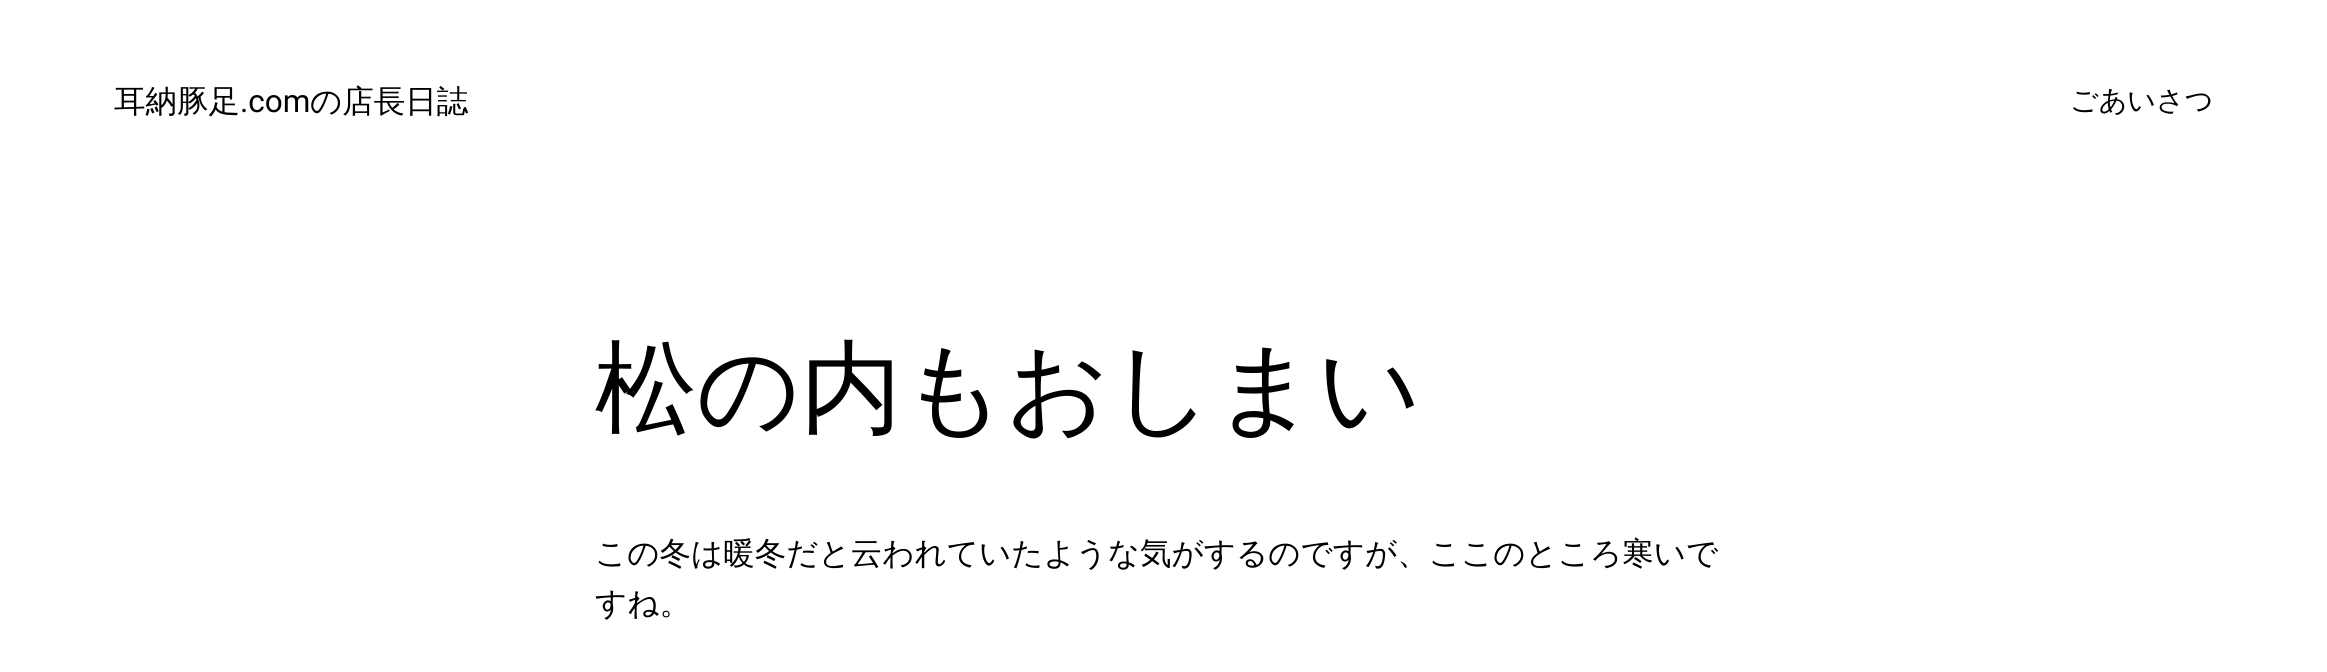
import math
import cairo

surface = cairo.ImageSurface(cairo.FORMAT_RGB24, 2327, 672)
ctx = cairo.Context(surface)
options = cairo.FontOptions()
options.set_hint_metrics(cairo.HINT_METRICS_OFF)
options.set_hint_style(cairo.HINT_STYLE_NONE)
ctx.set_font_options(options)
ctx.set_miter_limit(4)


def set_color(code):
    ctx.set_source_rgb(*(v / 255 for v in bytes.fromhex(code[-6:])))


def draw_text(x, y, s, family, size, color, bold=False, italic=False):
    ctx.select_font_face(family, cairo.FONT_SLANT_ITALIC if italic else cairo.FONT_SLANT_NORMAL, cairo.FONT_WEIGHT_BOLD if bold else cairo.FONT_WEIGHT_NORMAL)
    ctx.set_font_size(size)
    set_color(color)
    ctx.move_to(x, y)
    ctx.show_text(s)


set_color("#ffffff")
ctx.paint()
draw_text(114, 112, "耳納豚足", "WenQuanYi Zen Hei Medium", 31.5, "#000000")
draw_text(240, 112, ".com", "Roboto", 31.5, "#000000")
draw_text(310, 112, "の店長日誌", "WenQuanYi Zen Hei Medium", 31.5, "#000000")
draw_text(2070, 110, "ごあいさつ", "WenQuanYi Zen Hei Medium", 28, "#000000")
draw_text(595, 423, "松の内もおしまい", "WenQuanYi Zen Hei Medium", 101.5, "#000000")
draw_text(595, 564, "この冬は暖冬だと云われていたような気がするのですが、ここのところ寒いで", "WenQuanYi Zen Hei Medium", 31.5, "#000000")
draw_text(595, 614, "すね。", "WenQuanYi Zen Hei Medium", 31.5, "#000000")
surface.write_to_png("output.png")
